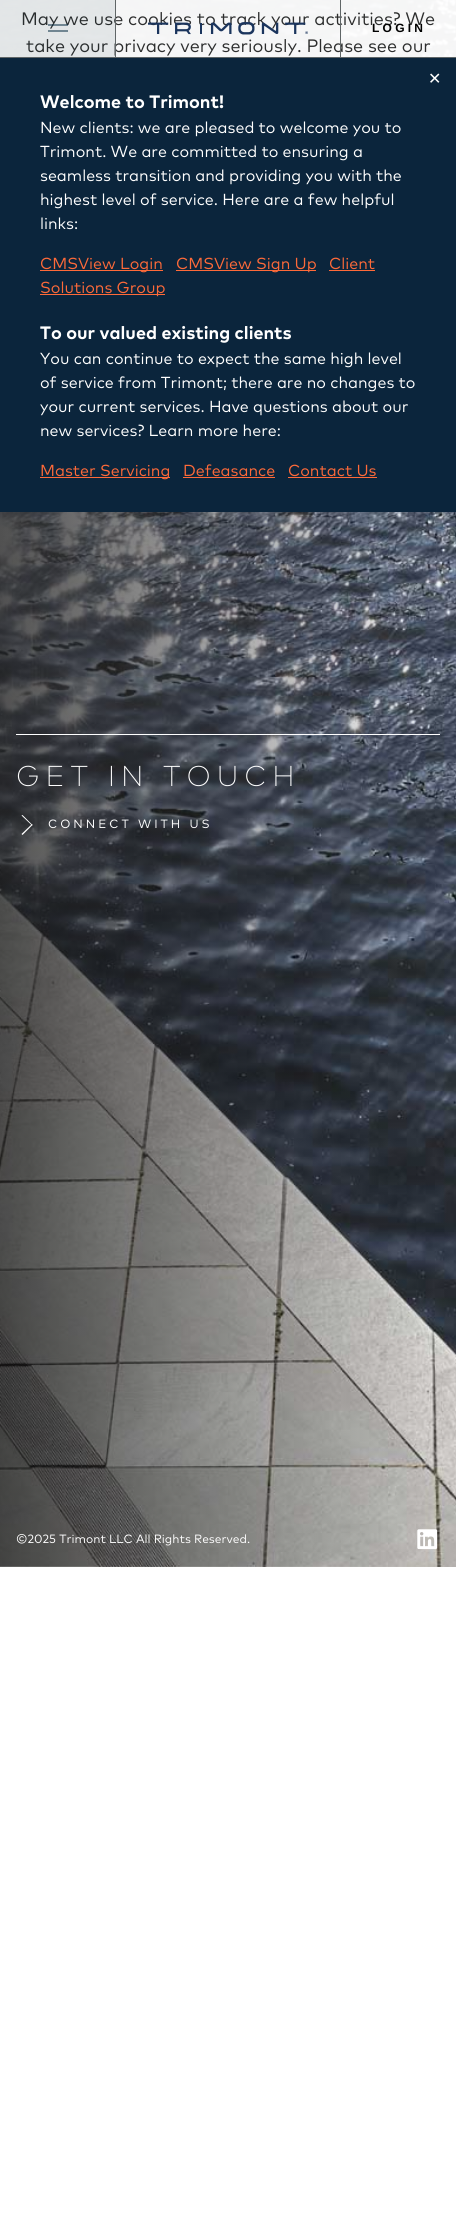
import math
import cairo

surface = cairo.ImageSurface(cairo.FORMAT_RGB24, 456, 2238)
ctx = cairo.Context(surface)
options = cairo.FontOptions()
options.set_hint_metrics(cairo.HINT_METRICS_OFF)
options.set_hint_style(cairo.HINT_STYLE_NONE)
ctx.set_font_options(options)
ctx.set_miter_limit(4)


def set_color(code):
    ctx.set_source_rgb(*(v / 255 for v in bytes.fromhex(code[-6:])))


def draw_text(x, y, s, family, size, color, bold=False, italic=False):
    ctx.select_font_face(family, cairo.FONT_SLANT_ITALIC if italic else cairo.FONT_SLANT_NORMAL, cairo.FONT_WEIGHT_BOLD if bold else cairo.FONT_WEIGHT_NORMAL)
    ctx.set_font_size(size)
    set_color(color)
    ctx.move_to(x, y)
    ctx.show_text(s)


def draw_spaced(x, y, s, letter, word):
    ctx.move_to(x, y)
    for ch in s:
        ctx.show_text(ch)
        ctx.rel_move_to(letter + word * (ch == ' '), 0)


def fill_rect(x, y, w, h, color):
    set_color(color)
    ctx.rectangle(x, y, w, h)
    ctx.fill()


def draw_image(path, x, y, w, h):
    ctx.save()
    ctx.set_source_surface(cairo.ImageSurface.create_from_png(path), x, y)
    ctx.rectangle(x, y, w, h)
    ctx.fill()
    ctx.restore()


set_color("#ffffff")
ctx.paint()
draw_image("assets/img2.png", 0, 0, 456, 1567)
ctx.set_source_rgba(1, 1, 1, 0.8)
ctx.rectangle(0, 0, 456, 57)
ctx.fill()
ctx.rectangle(0, 0, 456, 57)
ctx.fill()
draw_text(21, 25, "May we use cookies to track your activities? We", "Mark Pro", 18, "#2d2e2e")
draw_text(26, 52, "take your privacy very seriously. Please see our", "Mark Pro", 18, "#2d2e2e")
fill_rect(0, 57, 456, 1, "#606667")
ctx.set_source_rgba(0, 0.149, 0.243, 0.08)
ctx.rectangle(0, 0, 115, 57)
ctx.fill()
fill_rect(115, 0, 1, 57, "#606667")
ctx.new_path()
ctx.move_to(48, 25)
ctx.line_to(68, 25)
ctx.move_to(48, 31)
ctx.line_to(68, 31)
set_color("#00263e")
ctx.set_line_width(1)
ctx.stroke()
draw_image("assets/img1.png", 148, 22, 160, 13)
fill_rect(340, 0, 1, 57, "#606667")
ctx.select_font_face("Liberation Sans", cairo.FONT_SLANT_NORMAL, cairo.FONT_WEIGHT_BOLD)
ctx.set_font_size(12)
set_color("#000000")
draw_spaced(372, 32, "LOGIN", 3.25, 0)
fill_rect(0, 58, 456, 454, "#0b253c")
draw_text(428, 84, "✕", "DejaVu Sans", 16, "#ffffff")
draw_text(40, 108, "Welcome to Trimont!", "Mark Pro", 18, "#ffffff", bold=True)
draw_text(40, 133, "New clients: we are pleased to welcome you to", "Mark Pro", 16, "#ffffff")
draw_text(40, 157, "Trimont. We are committed to ensuring a", "Mark Pro", 16, "#ffffff")
draw_text(40, 181, "seamless transition and providing you with the", "Mark Pro", 16, "#ffffff")
draw_text(40, 205, "highest level of service. Here are a few helpful", "Mark Pro", 16, "#ffffff")
draw_text(40, 229, "links:", "Mark Pro", 16, "#ffffff")
fill_rect(40, 270, 123, 1, "#ff6a39")
draw_text(40, 269, "CMSView Login", "Mark Pro", 16, "#ff6a39")
fill_rect(176, 270, 140, 1, "#ff6a39")
draw_text(176, 269, "CMSView Sign Up", "Mark Pro", 16, "#ff6a39")
draw_text(329, 269, "Client", "Mark Pro", 16, "#ff6a39")
fill_rect(329, 270, 46, 1, "#ff6a39")
fill_rect(40, 294, 125, 1, "#ff6a39")
draw_text(40, 293, "Solutions Group", "Mark Pro", 16, "#ff6a39")
draw_text(40, 339, "To our valued existing clients", "Mark Pro", 18, "#ffffff", bold=True)
draw_text(40, 364, "You can continue to expect the same high level", "Mark Pro", 16, "#ffffff")
draw_text(40, 388, "of service from Trimont; there are no changes to", "Mark Pro", 16, "#ffffff")
draw_text(40, 412, "your current services. Have questions about our", "Mark Pro", 16, "#ffffff")
draw_text(40, 436, "new services? Learn more here:", "Mark Pro", 16, "#ffffff")
fill_rect(40, 477, 130, 1, "#ff6a39")
draw_text(40, 476, "Master Servicing", "Mark Pro", 16, "#ff6a39")
draw_text(183, 476, "Defeasance", "Mark Pro", 16, "#ff6a39")
fill_rect(183, 477, 92, 1, "#ff6a39")
draw_text(288, 476, "Contact Us", "Mark Pro", 16, "#ff6a39")
fill_rect(288, 477, 89, 1, "#ff6a39")
fill_rect(16, 734, 424, 1, "#ffffff")
ctx.select_font_face("Mark Pro Light")
ctx.set_font_size(28.75)
draw_spaced(16, 786, "GET IN TOUCH", 6, 0)
ctx.new_path()
ctx.move_to(22.5, 815)
ctx.line_to(32.5, 825)
ctx.line_to(32, 825.5)
ctx.line_to(21.5, 815.5)
ctx.close_path()
ctx.fill()
ctx.new_path()
ctx.move_to(32, 824)
ctx.line_to(32.5, 825)
ctx.line_to(22.5, 835)
ctx.line_to(21.5, 834)
ctx.close_path()
ctx.fill()
ctx.select_font_face("Mark Pro")
ctx.set_font_size(12)
draw_spaced(48, 828, "CONNECT WITH US", 3, 0)
draw_text(16, 1543, "©2025 Trimont LLC All Rights Reserved.", "Mark Pro", 12, "#ffffff")
draw_image("assets/img3.png", 417, 1529, 21, 21)
surface.write_to_png("output.png")
